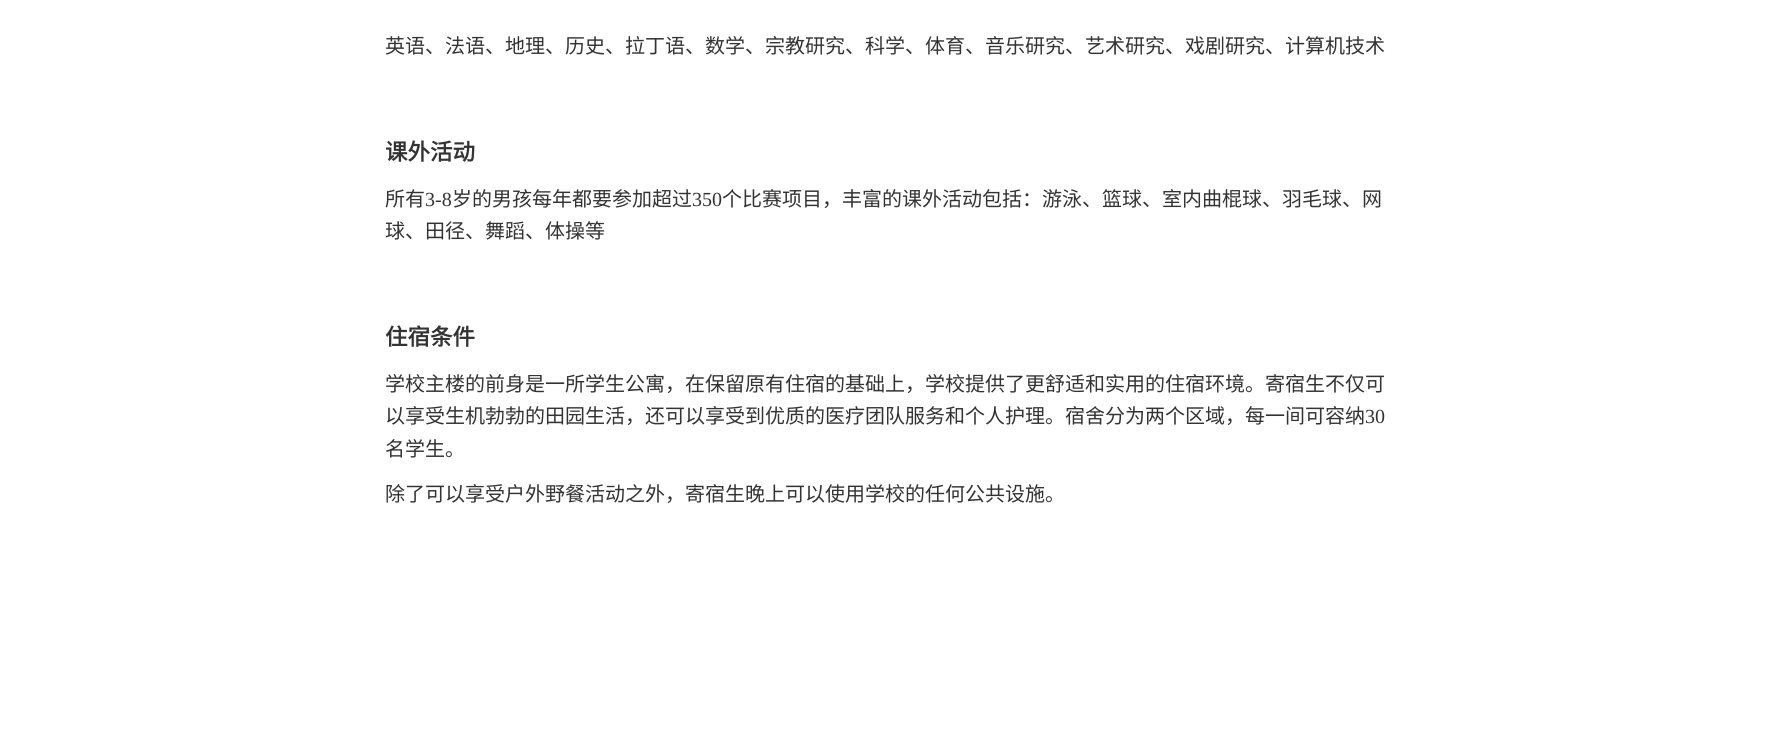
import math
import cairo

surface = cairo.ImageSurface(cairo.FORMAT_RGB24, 1770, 732)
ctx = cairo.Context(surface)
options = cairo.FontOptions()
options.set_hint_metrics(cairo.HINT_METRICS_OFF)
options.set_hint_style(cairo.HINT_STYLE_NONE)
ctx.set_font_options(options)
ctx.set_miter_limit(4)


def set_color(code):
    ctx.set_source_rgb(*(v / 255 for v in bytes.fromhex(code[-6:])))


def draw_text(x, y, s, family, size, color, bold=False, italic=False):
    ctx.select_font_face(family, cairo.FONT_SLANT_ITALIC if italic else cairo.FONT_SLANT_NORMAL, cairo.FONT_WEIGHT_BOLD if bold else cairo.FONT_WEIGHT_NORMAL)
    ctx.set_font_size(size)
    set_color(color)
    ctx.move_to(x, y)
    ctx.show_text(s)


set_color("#ffffff")
ctx.paint()
draw_text(385, 53, "英语、法语、地理、历史、拉丁语、数学、宗教研究、科学、体育、音乐研究、艺术研究、戏剧研究、计算机技术", "Noto Sans CJK SC", 20, "#333333")
draw_text(385, 160, "课外活动", "Noto Sans CJK SC", 22.5, "#333333", bold=True)
draw_text(385, 206, "所有", "Noto Sans CJK SC", 20, "#333333")
draw_text(425, 206, "3-8", "Liberation Serif", 20, "#333333")
draw_text(452, 206, "岁的男孩每年都要参加超过", "Noto Sans CJK SC", 20, "#333333")
draw_text(692, 206, "350", "Liberation Serif", 20, "#333333")
draw_text(722, 206, "个比赛项目，丰富的课外活动包括：游泳、篮球、室内曲棍球、羽毛球、网", "Noto Sans CJK SC", 20, "#333333")
draw_text(385, 238, "球、田径、舞蹈、体操等", "Noto Sans CJK SC", 20, "#333333")
draw_text(385, 345, "住宿条件", "Noto Sans CJK SC", 22.5, "#333333", bold=True)
draw_text(385, 391, "学校主楼的前身是一所学生公寓，在保留原有住宿的基础上，学校提供了更舒适和实用的住宿环境。寄宿生不仅可", "Noto Sans CJK SC", 20, "#333333")
draw_text(385, 423, "以享受生机勃勃的田园生活，还可以享受到优质的医疗团队服务和个人护理。宿舍分为两个区域，每一间可容纳", "Noto Sans CJK SC", 20, "#333333")
draw_text(1365, 423, "30", "Liberation Serif", 20, "#333333")
draw_text(385, 456, "名学生。", "Noto Sans CJK SC", 20, "#333333")
draw_text(385, 501, "除了可以享受户外野餐活动之外，寄宿生晚上可以使用学校的任何公共设施。", "Noto Sans CJK SC", 20, "#333333")
surface.write_to_png("output.png")
